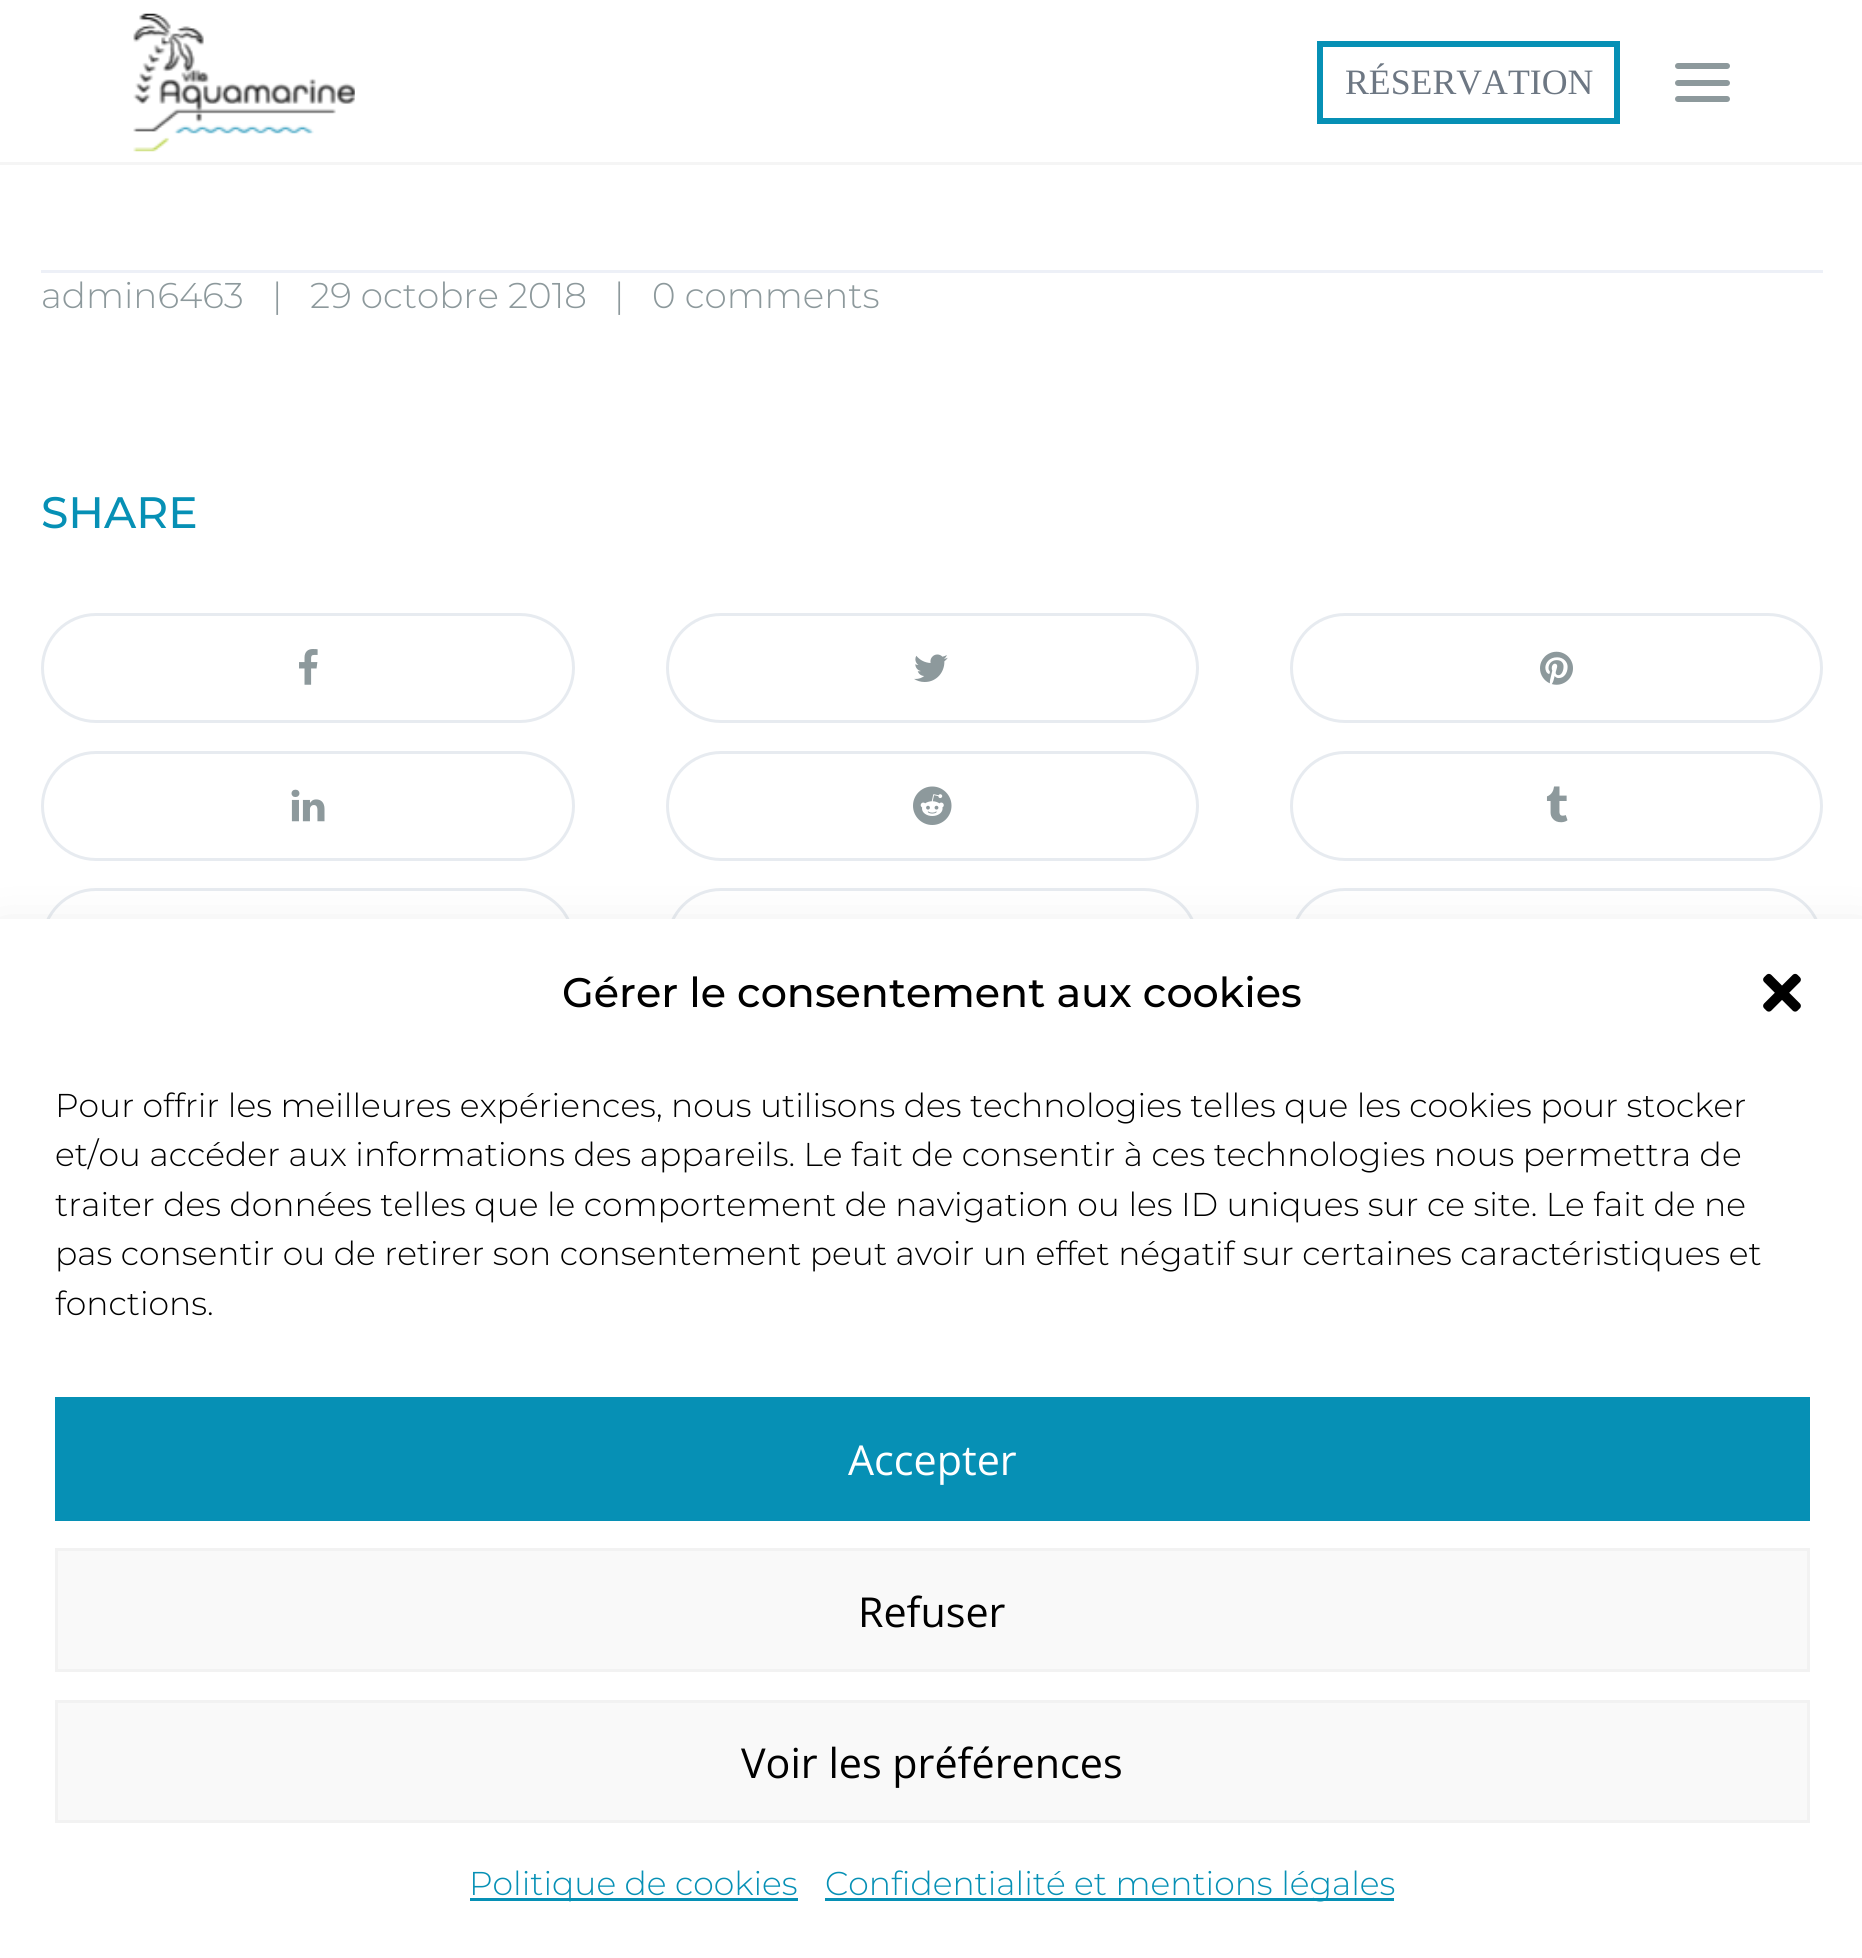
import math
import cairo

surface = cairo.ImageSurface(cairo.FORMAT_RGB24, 1862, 1958)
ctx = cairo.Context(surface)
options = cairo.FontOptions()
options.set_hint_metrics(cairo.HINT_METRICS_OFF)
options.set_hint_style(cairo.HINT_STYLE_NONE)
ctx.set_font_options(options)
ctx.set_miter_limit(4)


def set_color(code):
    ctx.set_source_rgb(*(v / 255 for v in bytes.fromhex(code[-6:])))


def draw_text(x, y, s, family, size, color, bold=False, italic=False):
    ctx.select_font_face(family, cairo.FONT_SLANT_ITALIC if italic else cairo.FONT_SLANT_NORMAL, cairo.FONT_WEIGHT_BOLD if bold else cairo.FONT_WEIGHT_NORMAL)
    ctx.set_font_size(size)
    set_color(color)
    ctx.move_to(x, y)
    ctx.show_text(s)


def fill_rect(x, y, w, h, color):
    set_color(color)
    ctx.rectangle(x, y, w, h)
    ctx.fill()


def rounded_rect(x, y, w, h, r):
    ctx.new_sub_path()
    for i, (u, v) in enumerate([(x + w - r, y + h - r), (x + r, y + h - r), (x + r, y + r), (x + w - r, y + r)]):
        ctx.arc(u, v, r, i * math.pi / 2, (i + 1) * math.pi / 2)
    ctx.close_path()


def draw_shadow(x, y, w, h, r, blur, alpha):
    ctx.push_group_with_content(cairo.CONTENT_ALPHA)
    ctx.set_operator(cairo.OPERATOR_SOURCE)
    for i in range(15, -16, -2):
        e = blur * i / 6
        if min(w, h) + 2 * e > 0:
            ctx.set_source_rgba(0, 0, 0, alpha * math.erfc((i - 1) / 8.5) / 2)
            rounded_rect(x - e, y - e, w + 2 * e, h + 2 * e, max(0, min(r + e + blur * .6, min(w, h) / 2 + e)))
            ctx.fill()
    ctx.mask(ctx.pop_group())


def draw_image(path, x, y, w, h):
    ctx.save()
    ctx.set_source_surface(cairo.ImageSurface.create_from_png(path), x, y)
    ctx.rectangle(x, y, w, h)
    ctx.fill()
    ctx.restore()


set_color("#ffffff")
ctx.paint()
fill_rect(0, 162, 1862, 3, "#f5f5f5")
draw_image("assets/img1.png", 133, 13, 222, 139)
ctx.rectangle(1320, 44, 297, 77)
set_color("#0690b5")
ctx.set_line_width(6)
ctx.stroke()
draw_text(1345, 94, "RÉSERVATION", "Liberation Serif", 35.75, "#6d7783")
set_color("#8d999c")
rounded_rect(1675, 80, 55, 6, 3)
ctx.fill()
rounded_rect(1675, 63, 55, 6, 3)
ctx.fill()
rounded_rect(1675, 96, 55, 6, 3)
ctx.fill()
fill_rect(41, 270, 1782, 3, "#edf0f7")
draw_text(41, 308, "admin6463", "Montserrat Light", 35.75, "#8d999c")
draw_text(272, 308, "|", "Montserrat Light", 35.75, "#8d999c")
draw_text(310, 308, "29 octobre 2018", "Montserrat Light", 35.75, "#8d999c")
draw_text(614, 308, "|", "Montserrat Light", 35.75, "#8d999c")
draw_text(652, 308, "0 comments", "Montserrat Light", 35.75, "#8d999c")
draw_text(41, 528, "SHARE", "Montserrat Medium", 44, "#0690b5")
rounded_rect(42.5, 614.5, 531, 107, 53.5)
set_color("#e7ebf0")
ctx.set_line_width(3)
ctx.stroke()
draw_image("assets/img2.png", 299, 649, 19, 36)
rounded_rect(667.5, 614.5, 530, 107, 53.5)
ctx.stroke()
draw_image("assets/img3.png", 914, 654, 34, 28)
rounded_rect(1291.5, 614.5, 530, 107, 53.5)
ctx.stroke()
draw_image("assets/img4.png", 1540, 651, 33, 34)
rounded_rect(42.5, 752.5, 531, 107, 53.5)
ctx.stroke()
draw_image("assets/img5.png", 291, 789, 34, 33)
rounded_rect(667.5, 752.5, 530, 107, 53.5)
ctx.stroke()
draw_image("assets/img6.png", 913, 786, 39, 39)
rounded_rect(1291.5, 752.5, 530, 107, 53.5)
ctx.stroke()
draw_image("assets/img7.png", 1546, 786, 22, 37)
rounded_rect(42.5, 889.5, 531, 107, 53.5)
ctx.stroke()
rounded_rect(667.5, 889.5, 530, 107, 53.5)
ctx.stroke()
rounded_rect(1291.5, 889.5, 530, 107, 53.5)
ctx.stroke()
set_color("#000000")
draw_shadow(0, 946, 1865, 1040, 0, 27.5, 0.19)
fill_rect(0, 919, 1862, 1039, "#ffffff")
draw_text(562, 1007, "Gérer le consentement aux cookies", "Montserrat Medium", 41.25, "#000000")
draw_image("assets/img8.png", 1763, 973, 38, 39)
draw_text(55, 1117, "Pour offrir les meilleures expériences, nous utilisons des technologies telles que les cookies pour stocker", "Montserrat Light", 33, "#000000")
draw_text(55, 1166, "et/ou accéder aux informations des appareils. Le fait de consentir à ces technologies nous permettra de", "Montserrat Light", 33, "#000000")
draw_text(55, 1216, "traiter des données telles que le comportement de navigation ou les ID uniques sur ce site. Le fait de ne", "Montserrat Light", 33, "#000000")
draw_text(55, 1265, "pas consentir ou de retirer son consentement peut avoir un effet négatif sur certaines caractéristiques et", "Montserrat Light", 33, "#000000")
draw_text(55, 1315, "fonctions.", "Montserrat Light", 33, "#000000")
fill_rect(55, 1397, 1755, 124, "#0690b5")
draw_text(848, 1475, "Accepter", "Open Sans", 41.25, "#ffffff")
set_color("#f9f9f9")
ctx.rectangle(56.5, 1549.5, 1752, 121)
ctx.fill_preserve()
set_color("#f2f2f2")
ctx.stroke()
draw_text(858, 1627, "Refuser", "Open Sans", 41.25, "#000000")
set_color("#f9f9f9")
ctx.rectangle(56.5, 1701.5, 1752, 120)
ctx.fill_preserve()
set_color("#f2f2f2")
ctx.stroke()
draw_text(741, 1778, "Voir les préférences", "Open Sans", 41.25, "#000000")
fill_rect(470, 1898, 328, 3, "#0690b5")
draw_text(469, 1895, "Politique de cookies", "Montserrat Light", 33, "#0690b5")
fill_rect(825, 1898, 569, 3, "#0690b5")
draw_text(825, 1895, "Confidentialité et mentions légales", "Montserrat Light", 33, "#0690b5")
surface.write_to_png("output.png")
